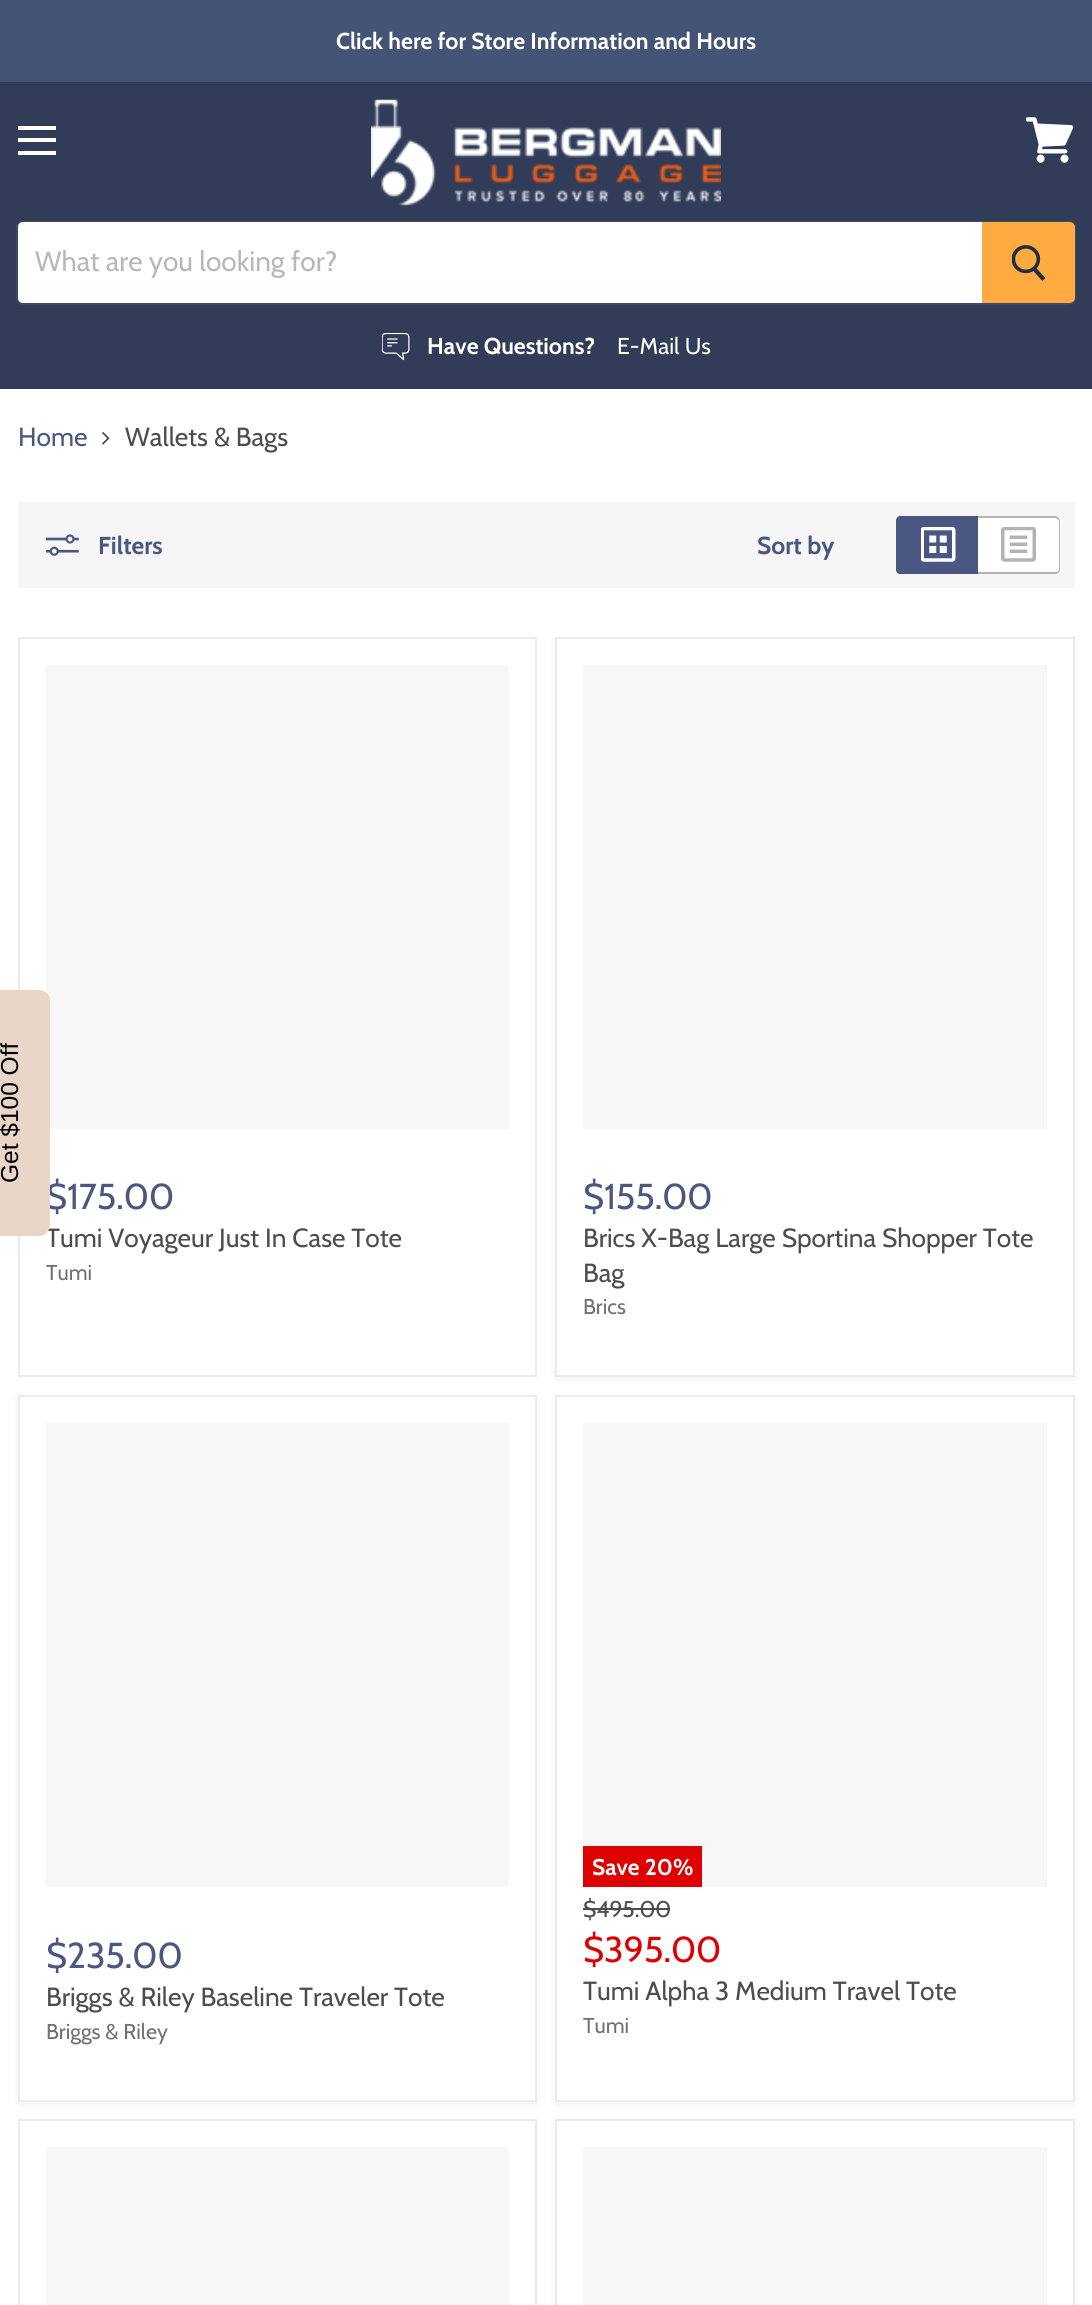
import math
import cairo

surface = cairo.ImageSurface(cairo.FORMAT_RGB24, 1092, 2305)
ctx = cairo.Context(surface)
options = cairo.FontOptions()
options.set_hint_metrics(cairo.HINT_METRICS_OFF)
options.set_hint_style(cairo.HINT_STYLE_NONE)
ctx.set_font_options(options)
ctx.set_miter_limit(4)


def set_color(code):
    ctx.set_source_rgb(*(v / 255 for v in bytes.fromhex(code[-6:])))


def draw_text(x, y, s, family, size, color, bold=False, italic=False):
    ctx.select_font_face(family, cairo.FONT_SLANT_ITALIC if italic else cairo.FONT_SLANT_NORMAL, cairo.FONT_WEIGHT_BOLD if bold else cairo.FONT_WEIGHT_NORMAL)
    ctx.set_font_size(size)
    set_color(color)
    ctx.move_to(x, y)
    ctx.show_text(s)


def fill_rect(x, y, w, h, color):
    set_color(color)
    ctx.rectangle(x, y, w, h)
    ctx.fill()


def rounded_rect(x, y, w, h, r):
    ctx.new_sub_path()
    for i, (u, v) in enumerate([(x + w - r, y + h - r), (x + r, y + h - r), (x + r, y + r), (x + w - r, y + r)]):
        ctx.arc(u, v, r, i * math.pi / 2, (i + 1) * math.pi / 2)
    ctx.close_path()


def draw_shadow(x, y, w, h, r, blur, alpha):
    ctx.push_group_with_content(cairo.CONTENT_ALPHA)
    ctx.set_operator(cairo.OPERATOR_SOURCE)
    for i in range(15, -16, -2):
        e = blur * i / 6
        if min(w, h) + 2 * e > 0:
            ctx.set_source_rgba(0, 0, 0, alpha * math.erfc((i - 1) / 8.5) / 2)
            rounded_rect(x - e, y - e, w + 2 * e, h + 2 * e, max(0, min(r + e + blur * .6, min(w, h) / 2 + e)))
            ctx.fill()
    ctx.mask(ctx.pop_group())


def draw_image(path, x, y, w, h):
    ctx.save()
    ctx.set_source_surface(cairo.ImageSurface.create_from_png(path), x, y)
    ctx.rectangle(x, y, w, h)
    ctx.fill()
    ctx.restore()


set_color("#ffffff")
ctx.paint()
fill_rect(0, 0, 1092, 82, "#445477")
draw_text(336, 49, "Click here for Store Information and Hours", "Cabin", 23, "#ffffff", bold=True)
fill_rect(0, 82, 1092, 307, "#303c58")
fill_rect(18, 126, 38, 4, "#ffffff")
fill_rect(18, 138, 38, 4, "#ffffff")
fill_rect(18, 151, 38, 4, "#ffffff")
draw_image("assets/img1.png", 1026, 117, 48, 46)
draw_image("assets/img2.png", 371, 99, 350, 107)
rounded_rect(17, 222, 1058, 82, 6)
ctx.set_source_rgba(0.498, 0.498, 0.498, 0.2)
ctx.stroke()
set_color("#ffffff")
ctx.new_path()
ctx.move_to(23, 222)
ctx.line_to(982, 222)
ctx.line_to(982, 303)
ctx.line_to(23, 303)
ctx.curve_to(20, 303, 18, 301, 18, 298)
ctx.line_to(18, 227)
ctx.curve_to(18, 224, 20, 222, 23, 222)
ctx.close_path()
ctx.fill()
draw_text(35, 271, "What are you looking for?", "Cabin", 28, "#b8b8b8")
set_color("#ffab41")
ctx.new_path()
ctx.move_to(983, 223)
ctx.line_to(1070, 223)
ctx.curve_to(1072, 223, 1074, 225, 1074, 227)
ctx.line_to(1074, 298)
ctx.curve_to(1074, 300, 1072, 302, 1070, 302)
ctx.line_to(983, 302)
ctx.close_path()
ctx.fill_preserve()
ctx.stroke()
draw_image("assets/img3.png", 1012, 245, 34, 36)
draw_image("assets/img4.png", 382, 333, 28, 28)
draw_text(427, 354, "Have Questions?", "Cabin", 23, "#ffffff", bold=True)
draw_text(617, 354, "E-Mail Us", "Cabin", 23, "#ffffff")
ctx.rectangle(19, 638, 517, 738)
set_color("#ebebeb")
ctx.stroke()
fill_rect(46, 665, 463, 464, "#f7f7f7")
draw_text(46, 1209, "$175.00", "Cabin", 36, "#4a5782")
draw_text(46, 1247, "Tumi Voyageur Just In Case Tote", "Cabin", 26.25, "#4d4d4d")
set_color("#ead6c9")
ctx.new_path()
ctx.move_to(-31, 1225)
ctx.line_to(-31, 1000)
ctx.curve_to(-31, 995, -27, 990, -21, 990)
ctx.line_to(39, 990)
ctx.curve_to(45, 990, 50, 995, 50, 1000)
ctx.line_to(50, 1225)
ctx.curve_to(50, 1231, 45, 1236, 39, 1236)
ctx.line_to(-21, 1236)
ctx.curve_to(-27, 1236, -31, 1231, -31, 1225)
ctx.close_path()
ctx.fill()
ctx.save()
ctx.translate(18, 1183)
ctx.rotate(-90 * math.pi / 180)
draw_text(0, 0, "Get $100 Off", "Liberation Sans", 24.5, "#000000")
ctx.restore()
draw_text(18, 446, "Home", "Cabin", 26.25, "#4a5782")
draw_image("assets/img5.png", 102, 432, 8, 13)
draw_text(125, 446, "Wallets & Bags", "Cabin", 26.25, "#4d4d4d")
fill_rect(18, 502, 1057, 86, "#f6f6f6")
draw_image("assets/img6.png", 46, 534, 33, 22)
draw_text(98, 554, "Filters", "Cabin", 24.5, "#4a5782", bold=True)
draw_text(757, 554, "Sort by", "Cabin", 24.5, "#4a5782", bold=True)
ctx.new_path()
ctx.move_to(901, 516)
ctx.line_to(978, 516)
ctx.line_to(978, 574)
ctx.line_to(901, 574)
ctx.curve_to(898, 574, 896, 572, 896, 569)
ctx.line_to(896, 521)
ctx.curve_to(896, 518, 898, 516, 901, 516)
ctx.close_path()
ctx.fill()
ctx.set_fill_rule(cairo.FILL_RULE_EVEN_ODD)
ctx.new_path()
ctx.move_to(901, 516)
ctx.line_to(978, 516)
ctx.line_to(978, 574)
ctx.line_to(901, 574)
ctx.curve_to(898, 574, 896, 572, 896, 569)
ctx.line_to(896, 522)
ctx.curve_to(896, 519, 898, 516, 901, 516)
ctx.close_path()
ctx.move_to(901, 518)
ctx.line_to(978, 518)
ctx.line_to(978, 572)
ctx.line_to(901, 572)
ctx.curve_to(899, 572, 898, 571, 898, 569)
ctx.line_to(898, 522)
ctx.curve_to(898, 520, 899, 518, 901, 518)
ctx.close_path()
ctx.fill()
draw_image("assets/img7.png", 921, 527, 35, 35)
set_color("#ffffff")
ctx.new_path()
ctx.move_to(978, 516)
ctx.line_to(1056, 516)
ctx.curve_to(1059, 516, 1061, 518, 1061, 521)
ctx.line_to(1061, 569)
ctx.curve_to(1061, 572, 1059, 574, 1056, 574)
ctx.line_to(978, 574)
ctx.close_path()
ctx.fill()
set_color("#b3b3b3")
ctx.new_path()
ctx.move_to(978, 516)
ctx.line_to(1055, 516)
ctx.curve_to(1058, 516, 1060, 519, 1060, 522)
ctx.line_to(1060, 569)
ctx.curve_to(1060, 572, 1058, 574, 1055, 574)
ctx.line_to(978, 574)
ctx.close_path()
ctx.move_to(978, 518)
ctx.line_to(1055, 518)
ctx.curve_to(1057, 518, 1059, 520, 1059, 522)
ctx.line_to(1059, 569)
ctx.curve_to(1059, 571, 1057, 572, 1055, 572)
ctx.line_to(978, 572)
ctx.close_path()
ctx.fill()
draw_image("assets/img8.png", 1001, 527, 35, 35)
draw_text(46, 1280, "Tumi", "Cabin", 21.5, "#717171")
set_color("#7f7f7f")
draw_shadow(555, 639, 520, 740, 0, 3.5, 0.11)
set_color("#ffffff")
ctx.rectangle(556, 638, 518, 738)
ctx.fill_preserve()
set_color("#ebebeb")
ctx.stroke()
fill_rect(583, 665, 464, 464, "#f7f7f7")
draw_text(583, 1209, "$155.00", "Cabin", 36, "#4a5782")
draw_text(583, 1247, "Brics X-Bag Large Sportina Shopper Tote", "Cabin", 26.25, "#4d4d4d")
draw_text(583, 1282, "Bag", "Cabin", 26.25, "#4d4d4d")
draw_text(583, 1314, "Brics", "Cabin", 21.5, "#717171")
set_color("#7f7f7f")
draw_shadow(18, 1397, 519, 707, 0, 3.5, 0.11)
set_color("#ffffff")
ctx.rectangle(19, 1396, 517, 705)
ctx.fill_preserve()
set_color("#ebebeb")
ctx.stroke()
fill_rect(46, 1423, 463, 464, "#f7f7f7")
draw_text(46, 1968, "$235.00", "Cabin", 36, "#4a5782")
draw_text(46, 2006, "Briggs & Riley Baseline Traveler Tote", "Cabin", 26.25, "#4d4d4d")
draw_text(46, 2039, "Briggs & Riley", "Cabin", 21.5, "#717171")
set_color("#7f7f7f")
draw_shadow(555, 1397, 520, 707, 0, 3.5, 0.11)
set_color("#ffffff")
ctx.rectangle(556, 1396, 518, 705)
ctx.fill_preserve()
set_color("#ebebeb")
ctx.stroke()
fill_rect(583, 1423, 464, 464, "#f7f7f7")
fill_rect(583, 1846, 119, 41, "#de0101")
draw_text(592, 1875, "Save 20%", "Cabin", 22.75, "#ffffff", bold=True)
draw_text(583, 1917, "$495.00", "Cabin", 22.75, "#4d4d4d")
fill_rect(583, 1908, 87, 2, "#4d4d4d")
draw_text(583, 1962, "$395.00", "Cabin", 36, "#de0101")
draw_text(583, 2000, "Tumi Alpha 3 Medium Travel Tote", "Cabin", 26.25, "#4d4d4d")
draw_text(583, 2033, "Tumi", "Cabin", 21.5, "#717171")
ctx.rectangle(19, 2120, 517, 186)
set_color("#eaeaea")
ctx.stroke()
fill_rect(46, 2147, 463, 158, "#f7f7f7")
set_color("#7f7f7f")
draw_shadow(555, 2121, 520, 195, 0, 3.5, 0.11)
set_color("#ffffff")
ctx.rectangle(556, 2120, 518, 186)
ctx.fill_preserve()
set_color("#ebebeb")
ctx.stroke()
fill_rect(583, 2147, 464, 158, "#f7f7f7")
surface.write_to_png("output.png")
